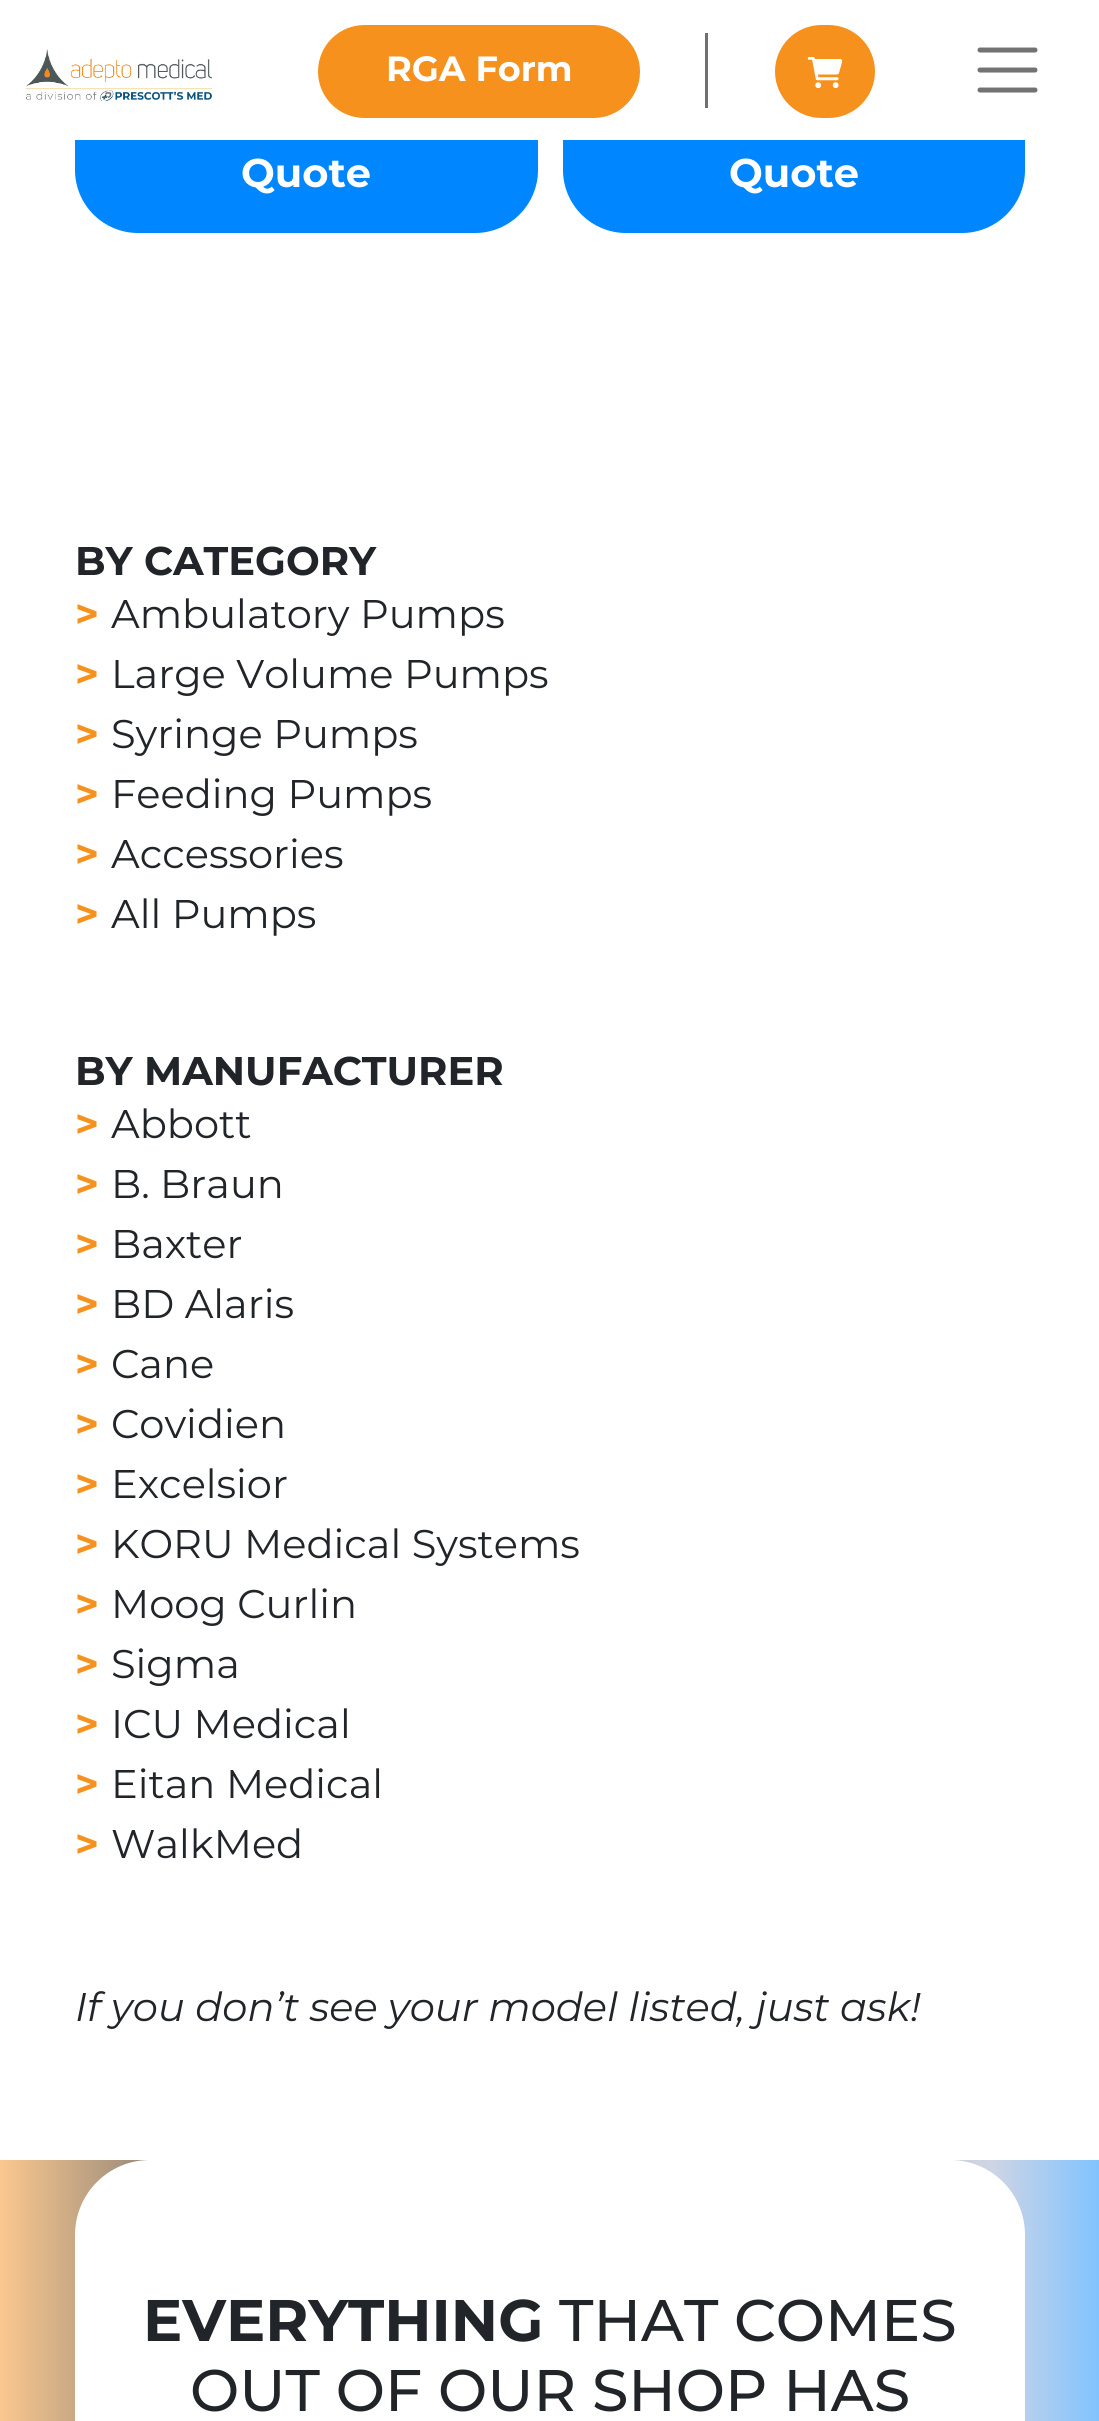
import math
import cairo

surface = cairo.ImageSurface(cairo.FORMAT_RGB24, 1099, 2421)
ctx = cairo.Context(surface)
options = cairo.FontOptions()
options.set_hint_metrics(cairo.HINT_METRICS_OFF)
options.set_hint_style(cairo.HINT_STYLE_NONE)
ctx.set_font_options(options)
ctx.set_miter_limit(4)


def set_color(code):
    ctx.set_source_rgb(*(v / 255 for v in bytes.fromhex(code[-6:])))


def draw_text(x, y, s, family, size, color, bold=False, italic=False):
    ctx.select_font_face(family, cairo.FONT_SLANT_ITALIC if italic else cairo.FONT_SLANT_NORMAL, cairo.FONT_WEIGHT_BOLD if bold else cairo.FONT_WEIGHT_NORMAL)
    ctx.set_font_size(size)
    set_color(color)
    ctx.move_to(x, y)
    ctx.show_text(s)


def fill_rect(x, y, w, h, color):
    set_color(color)
    ctx.rectangle(x, y, w, h)
    ctx.fill()


def rounded_rect(x, y, w, h, r):
    ctx.new_sub_path()
    for i, (u, v) in enumerate([(x + w - r, y + h - r), (x + r, y + h - r), (x + r, y + r), (x + w - r, y + r)]):
        ctx.arc(u, v, r, i * math.pi / 2, (i + 1) * math.pi / 2)
    ctx.close_path()


def draw_image(path, x, y, w, h):
    ctx.save()
    ctx.set_source_surface(cairo.ImageSurface.create_from_png(path), x, y)
    ctx.rectangle(x, y, w, h)
    ctx.fill()
    ctx.restore()


set_color("#ffffff")
ctx.paint()
set_color("#0086ff")
rounded_rect(79, 62, 455, 167, 59)
ctx.fill_preserve()
ctx.set_line_width(8)
ctx.stroke()
rounded_rect(567, 62, 454, 167, 59)
ctx.fill_preserve()
ctx.stroke()
fill_rect(75, 58, 950, 82, "#ffffff")
draw_image("assets/img1.png", 25, 49, 187, 53)
set_color("#f7911e")
rounded_rect(322, 29, 314, 85, 42.5)
ctx.fill_preserve()
ctx.stroke()
draw_text(386, 81, "RGA Form", "Montserrat", 35, "#ffffff", bold=True)
fill_rect(705, 33, 3, 75, "#707070")
set_color("#f7911e")
rounded_rect(779, 29, 92, 85, 42.5)
ctx.fill_preserve()
ctx.stroke()
draw_image("assets/img2.png", 807, 57, 36, 31)
ctx.new_path()
ctx.move_to(980, 50)
ctx.line_to(1035, 50)
ctx.move_to(980, 70)
ctx.line_to(1035, 70)
ctx.move_to(980, 90)
ctx.line_to(1035, 90)
set_color("#737373")
ctx.set_line_width(5)
ctx.set_line_cap(cairo.LINE_CAP_ROUND)
ctx.stroke()
draw_text(241, 187, "Quote", "Montserrat", 40, "#ffffff", bold=True)
draw_text(729, 187, "Quote", "Montserrat", 40, "#ffffff", bold=True)
draw_text(75, 575, "BY CATEGORY", "Montserrat", 40, "#212529", bold=True)
draw_text(75, 628, ">", "Montserrat", 40, "#f7911e", bold=True)
draw_text(111, 628, "Ambulatory Pumps", "Montserrat", 40, "#212529")
draw_text(75, 688, ">", "Montserrat", 40, "#f7911e", bold=True)
draw_text(111, 688, "Large Volume Pumps", "Montserrat", 40, "#212529")
draw_text(75, 748, ">", "Montserrat", 40, "#f7911e", bold=True)
draw_text(111, 748, "Syringe Pumps", "Montserrat", 40, "#212529")
draw_text(75, 808, ">", "Montserrat", 40, "#f7911e", bold=True)
draw_text(111, 808, "Feeding Pumps", "Montserrat", 40, "#212529")
draw_text(75, 868, ">", "Montserrat", 40, "#f7911e", bold=True)
draw_text(111, 868, "Accessories", "Montserrat", 40, "#212529")
draw_text(75, 928, ">", "Montserrat", 40, "#f7911e", bold=True)
draw_text(111, 928, "All Pumps", "Montserrat", 40, "#212529")
draw_text(75, 1085, "BY MANUFACTURER", "Montserrat", 40, "#212529", bold=True)
draw_text(75, 1138, ">", "Montserrat", 40, "#f7911e", bold=True)
draw_text(111, 1138, "Abbott", "Montserrat", 40, "#212529")
draw_text(75, 1198, ">", "Montserrat", 40, "#f7911e", bold=True)
draw_text(111, 1198, "B. Braun", "Montserrat", 40, "#212529")
draw_text(75, 1258, ">", "Montserrat", 40, "#f7911e", bold=True)
draw_text(111, 1258, "Baxter", "Montserrat", 40, "#212529")
draw_text(75, 1318, ">", "Montserrat", 40, "#f7911e", bold=True)
draw_text(111, 1318, "BD Alaris", "Montserrat", 40, "#212529")
draw_text(75, 1378, ">", "Montserrat", 40, "#f7911e", bold=True)
draw_text(111, 1378, "Cane", "Montserrat", 40, "#212529")
draw_text(75, 1438, ">", "Montserrat", 40, "#f7911e", bold=True)
draw_text(111, 1438, "Covidien", "Montserrat", 40, "#212529")
draw_text(75, 1498, ">", "Montserrat", 40, "#f7911e", bold=True)
draw_text(111, 1498, "Excelsior", "Montserrat", 40, "#212529")
draw_text(75, 1558, ">", "Montserrat", 40, "#f7911e", bold=True)
draw_text(111, 1558, "KORU Medical Systems", "Montserrat", 40, "#212529")
draw_text(75, 1618, ">", "Montserrat", 40, "#f7911e", bold=True)
draw_text(111, 1618, "Moog Curlin", "Montserrat", 40, "#212529")
draw_text(75, 1678, ">", "Montserrat", 40, "#f7911e", bold=True)
draw_text(111, 1678, "Sigma", "Montserrat", 40, "#212529")
draw_text(75, 1738, ">", "Montserrat", 40, "#f7911e", bold=True)
draw_text(111, 1738, "ICU Medical", "Montserrat", 40, "#212529")
draw_text(75, 1798, ">", "Montserrat", 40, "#f7911e", bold=True)
draw_text(111, 1798, "Eitan Medical", "Montserrat", 40, "#212529")
draw_text(75, 1858, ">", "Montserrat", 40, "#f7911e", bold=True)
draw_text(111, 1858, "WalkMed", "Montserrat", 40, "#212529")
draw_text(75, 2021, "If you don’t see your model listed, just ask!", "Montserrat", 40, "#212529", italic=True)
gradient = cairo.LinearGradient(0, 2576, 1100, 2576)
gradient.add_color_stop_rgba(0, 0.984, 0.784, 0.561, 1)
gradient.add_color_stop_rgba(0.2, 0.404, 0.42, 0.439, 1)
gradient.add_color_stop_rgba(0.9, 0.816, 0.835, 0.894, 1)
gradient.add_color_stop_rgba(1, 0.502, 0.765, 1, 1)
ctx.set_source(gradient)
ctx.rectangle(0, 2160, 1099, 261)
ctx.fill()
set_color("#ffffff")
rounded_rect(75, 2160, 950, 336, 75)
ctx.fill()
draw_text(143, 2341, "EVERYTHING", "Montserrat", 58.6, "#212529", bold=True)
draw_text(559, 2341, "THAT COMES", "Montserrat Medium", 58.6, "#212529")
draw_text(190, 2411, "OUT OF OUR SHOP HAS", "Montserrat Medium", 58.6, "#212529")
surface.write_to_png("output.png")
